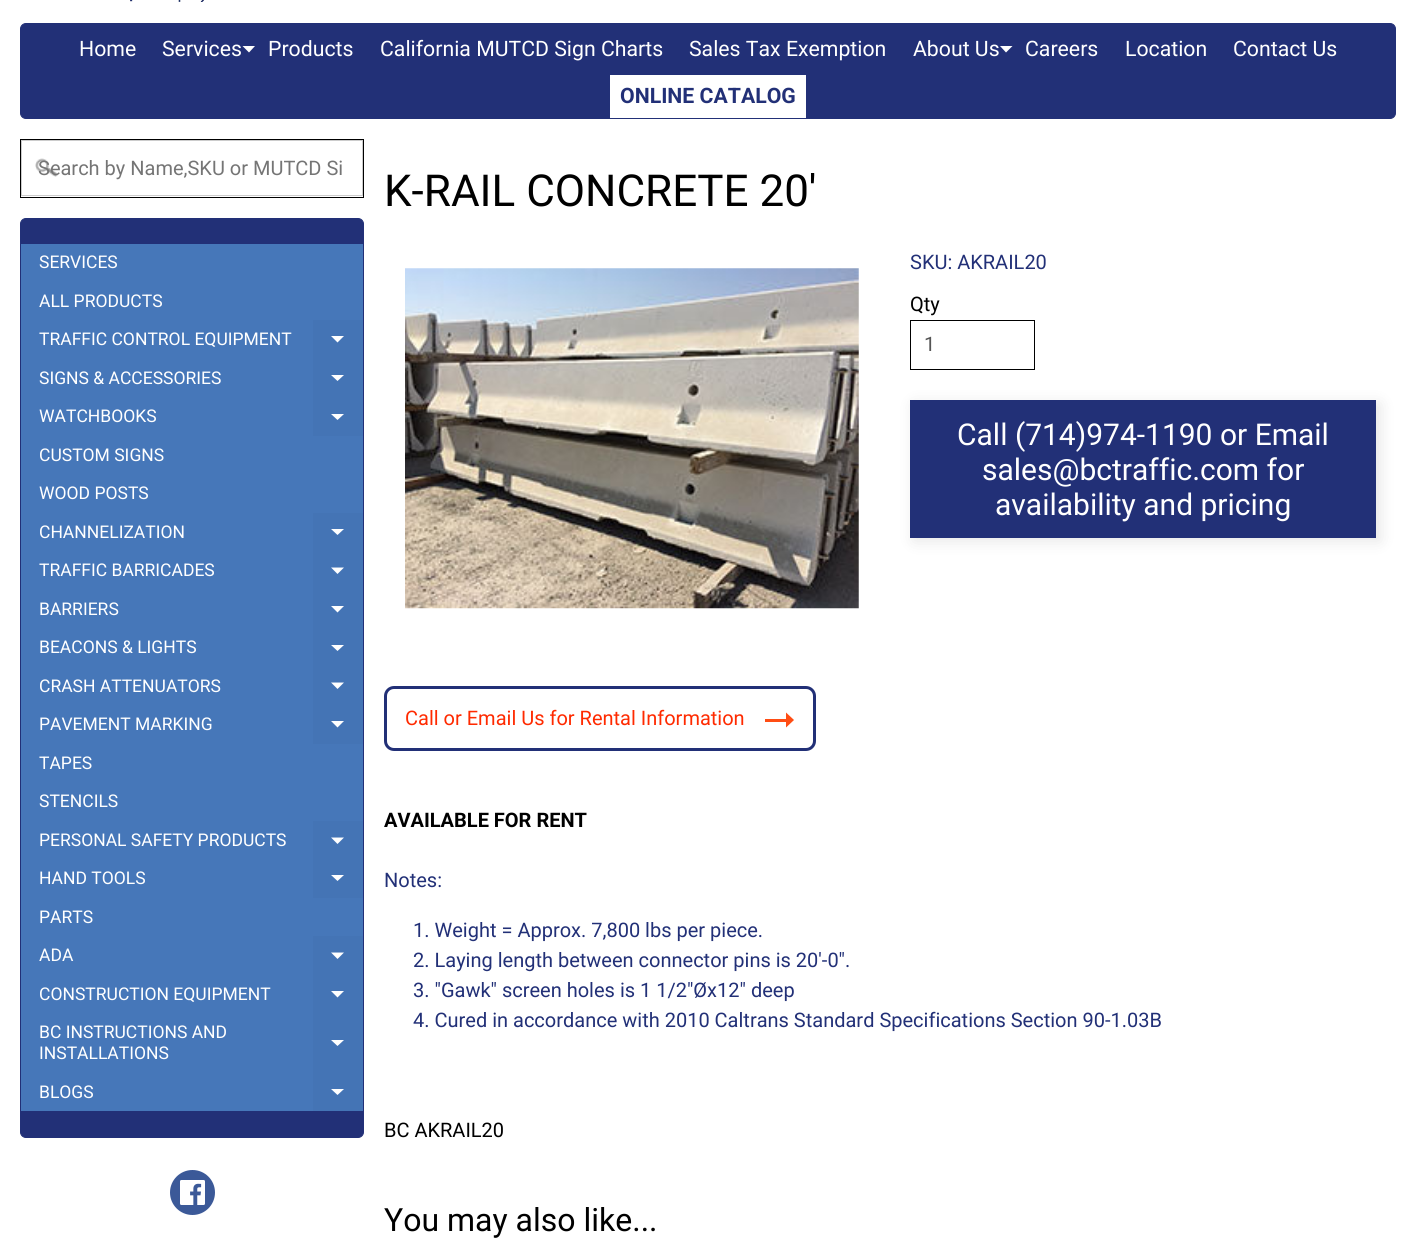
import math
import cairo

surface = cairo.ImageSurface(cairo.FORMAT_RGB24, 1416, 1244)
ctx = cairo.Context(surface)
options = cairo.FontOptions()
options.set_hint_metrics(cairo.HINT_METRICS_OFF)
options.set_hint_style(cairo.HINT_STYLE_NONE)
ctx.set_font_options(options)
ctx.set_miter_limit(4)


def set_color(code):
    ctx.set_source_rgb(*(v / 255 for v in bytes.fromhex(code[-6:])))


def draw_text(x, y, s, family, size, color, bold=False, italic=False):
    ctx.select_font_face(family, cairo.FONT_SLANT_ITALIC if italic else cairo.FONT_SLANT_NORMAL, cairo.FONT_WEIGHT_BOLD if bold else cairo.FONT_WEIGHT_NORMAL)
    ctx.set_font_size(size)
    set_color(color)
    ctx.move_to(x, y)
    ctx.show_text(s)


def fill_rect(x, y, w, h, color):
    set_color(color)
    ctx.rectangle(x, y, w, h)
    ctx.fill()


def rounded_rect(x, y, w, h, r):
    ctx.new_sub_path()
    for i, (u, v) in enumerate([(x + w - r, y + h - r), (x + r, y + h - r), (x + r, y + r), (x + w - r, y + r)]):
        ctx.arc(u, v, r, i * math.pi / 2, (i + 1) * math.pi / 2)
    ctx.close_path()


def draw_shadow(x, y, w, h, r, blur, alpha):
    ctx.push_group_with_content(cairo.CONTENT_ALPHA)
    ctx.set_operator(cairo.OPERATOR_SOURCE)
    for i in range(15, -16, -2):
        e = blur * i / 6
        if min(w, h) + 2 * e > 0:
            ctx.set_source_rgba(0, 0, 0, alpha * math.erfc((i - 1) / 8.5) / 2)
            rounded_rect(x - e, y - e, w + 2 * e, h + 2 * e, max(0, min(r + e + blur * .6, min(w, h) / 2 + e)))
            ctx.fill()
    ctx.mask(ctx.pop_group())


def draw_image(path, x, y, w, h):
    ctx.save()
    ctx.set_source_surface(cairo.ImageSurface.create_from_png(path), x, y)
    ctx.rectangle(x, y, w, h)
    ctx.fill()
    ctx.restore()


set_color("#ffffff")
ctx.paint()
draw_image("assets/img1.png", 130, 0, 74, 2)
set_color("#223077")
rounded_rect(20.5, 23.5, 1375, 95, 5.5)
ctx.fill_preserve()
ctx.set_line_width(1)
ctx.stroke()
draw_text(79, 56, "Home", "Roboto", 21.25, "#ffffff")
draw_text(162, 56, "Services", "Roboto", 21.25, "#ffffff")
ctx.new_path()
ctx.move_to(242.5, 46)
ctx.line_to(255, 46)
ctx.line_to(249, 52.5)
ctx.close_path()
ctx.fill()
draw_text(268, 56, "Products", "Roboto", 21.25, "#ffffff")
draw_text(380, 56, "California MUTCD Sign Charts", "Roboto", 21.25, "#ffffff")
draw_text(689, 56, "Sales Tax Exemption", "Roboto", 21.25, "#ffffff")
draw_text(913, 56, "About Us", "Roboto", 21.25, "#ffffff")
ctx.new_path()
ctx.move_to(1000, 46)
ctx.line_to(1012.5, 46)
ctx.line_to(1006, 52.5)
ctx.close_path()
ctx.fill()
draw_text(1025, 56, "Careers", "Roboto", 21.25, "#ffffff")
draw_text(1125, 56, "Location", "Roboto", 21.25, "#ffffff")
draw_text(1233, 56, "Contact Us", "Roboto", 21.25, "#ffffff")
fill_rect(610, 75, 196, 43, "#ffffff")
draw_text(620, 103, "ONLINE CATALOG", "Roboto", 21.25, "#223077", bold=True)
ctx.rectangle(20.5, 139.5, 343, 58)
set_color("#000000")
ctx.stroke()
draw_image("assets/img2.png", 35, 158, 23, 19)
ctx.rectangle(21.5, 140.5, 341, 55)
set_color("#cccccc")
ctx.stroke()
draw_text(38, 175, "Search by Name,SKU or MUTCD Si", "Roboto", 20, "#757575")
set_color("#223077")
rounded_rect(20.5, 218.5, 343, 919, 5.5)
ctx.fill_preserve()
ctx.stroke()
fill_rect(21, 244, 342, 76, "#4677b9")
draw_text(39, 268, "SERVICES", "Roboto", 17.5, "#ffffff")
draw_text(39, 307, "ALL PRODUCTS", "Roboto", 17.5, "#ffffff")
fill_rect(21, 320, 292, 116, "#4677b9")
draw_text(39, 345, "TRAFFIC CONTROL EQUIPMENT", "Roboto", 17.5, "#ffffff")
fill_rect(313, 320, 50, 116, "#4474b5")
set_color("#ffffff")
ctx.new_path()
ctx.move_to(331, 336)
ctx.line_to(344, 336)
ctx.line_to(337.5, 342.5)
ctx.close_path()
ctx.fill()
draw_text(39, 384, "SIGNS & ACCESSORIES", "Roboto", 17.5, "#ffffff")
ctx.new_path()
ctx.move_to(331, 375)
ctx.line_to(344, 375)
ctx.line_to(337.5, 381)
ctx.close_path()
ctx.fill()
draw_text(39, 422, "WATCHBOOKS", "Roboto", 17.5, "#ffffff")
ctx.new_path()
ctx.move_to(331, 414)
ctx.line_to(344, 414)
ctx.line_to(337.5, 420)
ctx.close_path()
ctx.fill()
fill_rect(21, 436, 342, 77, "#4677b9")
draw_text(39, 461, "CUSTOM SIGNS", "Roboto", 17.5, "#ffffff")
draw_text(39, 499, "WOOD POSTS", "Roboto", 17.5, "#ffffff")
fill_rect(21, 513, 292, 231, "#4677b9")
draw_text(39, 538, "CHANNELIZATION", "Roboto", 17.5, "#ffffff")
fill_rect(313, 513, 50, 231, "#4474b5")
set_color("#ffffff")
ctx.new_path()
ctx.move_to(331, 529)
ctx.line_to(344, 529)
ctx.line_to(337.5, 535)
ctx.close_path()
ctx.fill()
draw_text(39, 576, "TRAFFIC BARRICADES", "Roboto", 17.5, "#ffffff")
ctx.new_path()
ctx.move_to(331, 567.5)
ctx.line_to(344, 567.5)
ctx.line_to(337.5, 574)
ctx.close_path()
ctx.fill()
draw_text(39, 615, "BARRIERS", "Roboto", 17.5, "#ffffff")
ctx.new_path()
ctx.move_to(331, 606)
ctx.line_to(344, 606)
ctx.line_to(337.5, 612.5)
ctx.close_path()
ctx.fill()
draw_text(39, 653, "BEACONS & LIGHTS", "Roboto", 17.5, "#ffffff")
ctx.new_path()
ctx.move_to(331, 645)
ctx.line_to(344, 645)
ctx.line_to(337.5, 651)
ctx.close_path()
ctx.fill()
draw_text(39, 692, "CRASH ATTENUATORS", "Roboto", 17.5, "#ffffff")
ctx.new_path()
ctx.move_to(331, 682.5)
ctx.line_to(344, 682.5)
ctx.line_to(337.5, 689)
ctx.close_path()
ctx.fill()
draw_text(39, 730, "PAVEMENT MARKING", "Roboto", 17.5, "#ffffff")
ctx.new_path()
ctx.move_to(331, 721)
ctx.line_to(344, 721)
ctx.line_to(337.5, 727.5)
ctx.close_path()
ctx.fill()
fill_rect(21, 744, 342, 77, "#4677b9")
draw_text(39, 769, "TAPES", "Roboto", 17.5, "#ffffff")
draw_text(39, 807, "STENCILS", "Roboto", 17.5, "#ffffff")
fill_rect(21, 821, 292, 77, "#4677b9")
draw_text(39, 846, "PERSONAL SAFETY PRODUCTS", "Roboto", 17.5, "#ffffff")
fill_rect(313, 821, 50, 77, "#4474b5")
set_color("#ffffff")
ctx.new_path()
ctx.move_to(331, 837.5)
ctx.line_to(344, 837.5)
ctx.line_to(337.5, 844)
ctx.close_path()
ctx.fill()
draw_text(39, 884, "HAND TOOLS", "Roboto", 17.5, "#ffffff")
ctx.new_path()
ctx.move_to(331, 875)
ctx.line_to(344, 875)
ctx.line_to(337.5, 881)
ctx.close_path()
ctx.fill()
fill_rect(21, 898, 342, 38, "#4677b9")
draw_text(39, 923, "PARTS", "Roboto", 17.5, "#ffffff")
fill_rect(21, 936, 292, 175, "#4677b9")
draw_text(39, 961, "ADA", "Roboto", 17.5, "#ffffff")
fill_rect(313, 936, 50, 175, "#4474b5")
set_color("#ffffff")
ctx.new_path()
ctx.move_to(331, 952.5)
ctx.line_to(344, 952.5)
ctx.line_to(337.5, 959)
ctx.close_path()
ctx.fill()
draw_text(39, 1000, "CONSTRUCTION EQUIPMENT", "Roboto", 17.5, "#ffffff")
ctx.new_path()
ctx.move_to(331, 991)
ctx.line_to(344, 991)
ctx.line_to(337.5, 997.5)
ctx.close_path()
ctx.fill()
draw_text(39, 1038, "BC INSTRUCTIONS AND", "Roboto", 17.5, "#ffffff")
ctx.new_path()
ctx.move_to(331, 1040)
ctx.line_to(344, 1040)
ctx.line_to(337.5, 1046)
ctx.close_path()
ctx.fill()
draw_text(39, 1059, "INSTALLATIONS", "Roboto", 17.5, "#ffffff")
draw_text(39, 1098, "BLOGS", "Roboto", 17.5, "#ffffff")
ctx.new_path()
ctx.move_to(331, 1089)
ctx.line_to(344, 1089)
ctx.line_to(337.5, 1095)
ctx.close_path()
ctx.fill()
set_color("#3b5998")
ctx.arc(192.5, 1192.5, 22.5, 0, 2 * math.pi)
ctx.fill()
draw_image("assets/img3.png", 180, 1180, 25, 25)
draw_text(384, 206, "K-RAIL CONCRETE 20'", "Roboto", 44, "#000000")
draw_image("assets/img4.png", 405, 268, 454, 341)
draw_text(910, 269, "SKU: AKRAIL20", "Roboto", 20, "#223077")
draw_text(910, 311, "Qty", "Roboto", 20, "#000000")
ctx.rectangle(910.5, 320.5, 124, 49)
ctx.stroke()
draw_text(924, 351, "1", "Roboto", 20, "#555555")
set_color("#000000")
draw_shadow(914, 404, 466, 137, 0, 7.5, 0.1)
fill_rect(910, 400, 466, 138, "#223077")
draw_text(957, 445, "Call (714)974-1190 or Email", "Roboto", 30, "#ffffff")
draw_text(982, 480, "sales@bctraffic.com for", "Roboto", 30, "#ffffff")
draw_text(995, 515, "availability and pricing", "Roboto", 30, "#ffffff")
rounded_rect(385.5, 687.5, 429, 62, 8.5)
set_color("#223077")
ctx.set_line_width(3)
ctx.stroke()
draw_text(405, 725, "Call or Email Us for Rental Information", "Roboto", 20, "#ff2a00")
fill_rect(765, 719, 21, 3, "#ff4d14")
ctx.new_path()
ctx.move_to(786, 727.5)
ctx.line_to(786, 712.5)
ctx.line_to(794, 720)
ctx.close_path()
ctx.fill()
draw_text(384, 827, "AVAILABLE FOR RENT", "Roboto", 20, "#000000", bold=True)
draw_text(384, 887, "Notes:", "Roboto", 20, "#223077")
draw_text(413, 937, "1. Weight = Approx. 7,800 lbs per piece.", "Roboto", 20, "#223077")
draw_text(413, 967, "2. Laying length between connector pins is 20'-0\".", "Roboto", 20, "#223077")
draw_text(413, 997, "3. \"Gawk\" screen holes is 1 1/2\"Øx12\" deep", "Roboto", 20, "#223077")
draw_text(413, 1027, "4. Cured in accordance with 2010 Caltrans Standard Specifications Section 90-1.03B", "Roboto", 20, "#223077")
draw_text(384, 1137, "BC AKRAIL20", "Roboto", 20, "#000000")
draw_text(384, 1231, "You may also like...", "Roboto", 32, "#000000")
surface.write_to_png("output.png")
